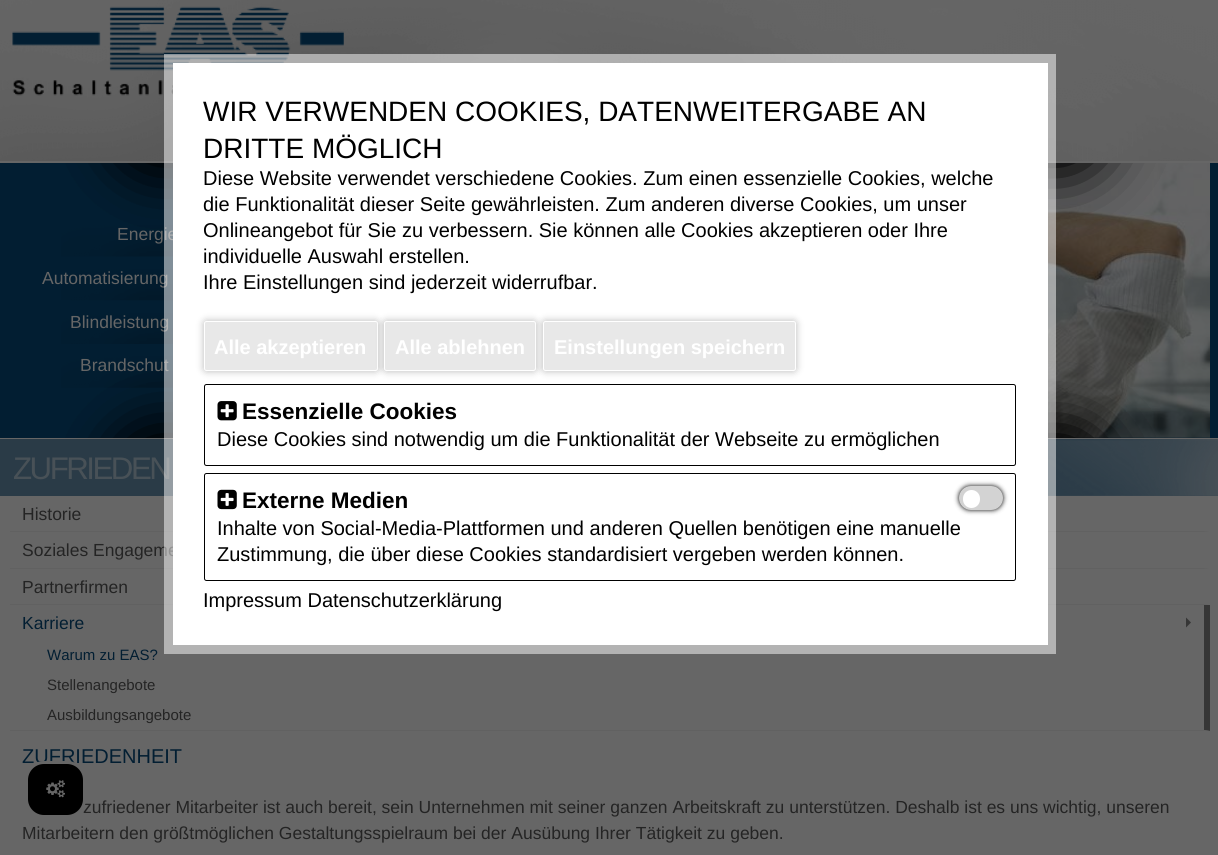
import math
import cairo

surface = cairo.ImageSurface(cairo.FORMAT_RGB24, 1218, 855)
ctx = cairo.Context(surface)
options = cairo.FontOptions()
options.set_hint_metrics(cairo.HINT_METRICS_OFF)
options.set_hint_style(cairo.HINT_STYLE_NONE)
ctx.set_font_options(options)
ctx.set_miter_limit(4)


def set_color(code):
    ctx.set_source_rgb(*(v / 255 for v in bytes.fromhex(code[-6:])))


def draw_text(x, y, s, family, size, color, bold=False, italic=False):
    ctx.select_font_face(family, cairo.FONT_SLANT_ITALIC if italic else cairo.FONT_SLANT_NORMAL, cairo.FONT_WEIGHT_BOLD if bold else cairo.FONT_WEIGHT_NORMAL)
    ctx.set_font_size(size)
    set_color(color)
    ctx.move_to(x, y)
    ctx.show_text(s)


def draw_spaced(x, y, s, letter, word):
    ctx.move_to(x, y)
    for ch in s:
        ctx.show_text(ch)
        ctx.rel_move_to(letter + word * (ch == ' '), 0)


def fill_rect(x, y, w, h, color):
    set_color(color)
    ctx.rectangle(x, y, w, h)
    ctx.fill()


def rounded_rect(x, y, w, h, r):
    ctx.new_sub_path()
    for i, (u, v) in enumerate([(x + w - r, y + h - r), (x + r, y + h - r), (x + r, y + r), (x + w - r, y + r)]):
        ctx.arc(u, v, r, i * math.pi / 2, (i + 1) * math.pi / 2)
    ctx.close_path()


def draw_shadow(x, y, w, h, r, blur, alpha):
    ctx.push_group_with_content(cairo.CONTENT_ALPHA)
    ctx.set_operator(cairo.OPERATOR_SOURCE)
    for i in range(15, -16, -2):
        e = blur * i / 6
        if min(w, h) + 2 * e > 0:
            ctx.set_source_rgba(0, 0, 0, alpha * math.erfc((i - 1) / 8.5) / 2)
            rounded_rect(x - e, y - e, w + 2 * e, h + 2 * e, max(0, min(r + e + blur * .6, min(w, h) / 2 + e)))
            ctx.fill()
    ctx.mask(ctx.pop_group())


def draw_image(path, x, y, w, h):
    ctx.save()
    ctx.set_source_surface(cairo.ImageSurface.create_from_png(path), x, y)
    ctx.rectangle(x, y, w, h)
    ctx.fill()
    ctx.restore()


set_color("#021e32")
ctx.paint()
draw_image("assets/img5.png", 61, 225, 112, 32)
draw_image("assets/img9.png", 1048, 163, 162, 275)
set_color("#000000")
draw_shadow(123, 75, 975, 88, 44, 31, 1)
draw_shadow(123, 75, 975, 88, 44, 31, 1)
fill_rect(0, 161, 1218, 2, "#666666")
draw_image("assets/img3.png", 0, 0, 1218, 161)
draw_image("assets/img4.png", 12, 6, 332, 90)
draw_text(117, 240, "Energie", "Liberation Sans", 17.5, "#666666")
draw_image("assets/img8.png", 61, 356, 112, 32)
set_color("#000000")
draw_shadow(123, 438, 975, 87, 43.5, 31, 1)
draw_shadow(123, 438, 975, 87, 43.5, 31, 1)
fill_rect(0, 438, 1218, 417, "#666666")
fill_rect(0, 439, 1218, 57, "#2a3b47")
set_color("#616161")
ctx.new_path()
ctx.move_to(1210, 532)
ctx.line_to(10, 532)
ctx.line_to(10, 531)
ctx.line_to(1204, 531)
ctx.close_path()
ctx.fill()
ctx.new_path()
ctx.move_to(1210, 569)
ctx.line_to(10, 569)
ctx.line_to(10, 568)
ctx.line_to(1204, 568)
ctx.close_path()
ctx.fill()
draw_text(22, 556, "Soziales Engageme", "Liberation Sans", 17.5, "#242424")
set_color("#616161")
ctx.new_path()
ctx.move_to(1210, 605)
ctx.line_to(10, 605)
ctx.line_to(10, 604)
ctx.line_to(1204, 604)
ctx.close_path()
ctx.fill()
fill_rect(173, 63, 875, 582, "#ffffff")
draw_image("assets/img6.png", 61, 269, 112, 32)
draw_text(42, 284, "Automatisierung", "Liberation Sans", 17.5, "#666666")
draw_image("assets/img7.png", 61, 313, 112, 31)
draw_text(70, 328, "Blindleistung", "Liberation Sans", 17.5, "#666666")
draw_text(80, 371, "Brandschut", "Liberation Sans", 17.5, "#666666")
draw_image("assets/img10.png", 1048, 439, 170, 57)
ctx.set_font_size(31.25)
set_color("#485157")
draw_spaced(13, 479, "ZUFRIEDEN", -2.5, 0)
ctx.rectangle(168.5, 58.5, 883, 591)
ctx.set_source_rgba(1, 1, 1, 0.5)
ctx.set_line_width(9)
ctx.stroke()
draw_text(203, 121, "WIR VERWENDEN COOKIES, DATENWEITERGABE AN", "Liberation Sans", 28, "#000000")
draw_text(203, 158, "DRITTE MÖGLICH", "Liberation Sans", 28, "#000000")
draw_text(203, 185, "Diese Website verwendet verschiedene Cookies. Zum einen essenzielle Cookies, welche", "Liberation Sans", 20, "#000000")
draw_text(203, 211, "die Funktionalität dieser Seite gewährleisten. Zum anderen diverse Cookies, um unser", "Liberation Sans", 20, "#000000")
draw_text(203, 237, "Onlineangebot für Sie zu verbessern. Sie können alle Cookies akzeptieren oder Ihre", "Liberation Sans", 20, "#000000")
draw_text(203, 263, "individuelle Auswahl erstellen.", "Liberation Sans", 20, "#000000")
draw_text(203, 289, "Ihre Einstellungen sind jederzeit widerrufbar.", "Liberation Sans", 20, "#000000")
set_color("#000000")
draw_shadow(204, 321, 174, 50, 2.5, 4, 0.28)
set_color("#e8e8e8")
rounded_rect(204.5, 321.5, 173, 49, 2)
ctx.fill_preserve()
set_color("#ffffff")
ctx.set_line_width(1)
ctx.stroke()
draw_text(214, 354, "Alle akzeptieren", "Liberation Sans", 20, "#ffffff", bold=True)
set_color("#000000")
draw_shadow(384, 321, 152, 50, 2.5, 4, 0.28)
set_color("#e8e8e8")
rounded_rect(384.5, 321.5, 151, 49, 2)
ctx.fill_preserve()
set_color("#ffffff")
ctx.stroke()
draw_text(395, 354, "Alle ablehnen", "Liberation Sans", 20, "#ffffff", bold=True)
set_color("#000000")
draw_shadow(543, 321, 253, 50, 2.5, 4, 0.28)
set_color("#e8e8e8")
rounded_rect(543.5, 321.5, 252, 49, 2)
ctx.fill_preserve()
set_color("#ffffff")
ctx.stroke()
draw_text(554, 354, "Einstellungen speichern", "Liberation Sans", 20, "#ffffff", bold=True)
rounded_rect(204.5, 384.5, 811, 81, 2)
set_color("#000000")
ctx.stroke()
draw_image("assets/img1.png", 217, 401, 20, 20)
draw_text(242, 419, "Essenzielle Cookies", "Liberation Sans", 22.5, "#000000", bold=True)
draw_text(217, 446, "Diese Cookies sind notwendig um die Funktionalität der Webseite zu ermöglichen", "Liberation Sans", 20, "#000000")
rounded_rect(204.5, 473.5, 811, 107, 2)
ctx.stroke()
draw_image("assets/img2.png", 217, 489, 20, 21)
draw_text(242, 508, "Externe Medien", "Liberation Sans", 22.5, "#000000", bold=True)
set_color("#000000")
draw_shadow(959, 486, 44, 24, 12, 2.5, 1)
set_color("#d3d3d3")
rounded_rect(959, 486, 44, 24, 12)
ctx.fill()
set_color("#ffffff")
rounded_rect(964.5, 491.5, 14, 15, 7)
ctx.fill_preserve()
ctx.set_line_width(3)
ctx.stroke()
draw_text(217, 535, "Inhalte von Social-Media-Plattformen und anderen Quellen benötigen eine manuelle", "Liberation Sans", 20, "#000000")
draw_text(217, 561, "Zustimmung, die über diese Cookies standardisiert vergeben werden können.", "Liberation Sans", 20, "#000000")
draw_text(203, 607, "Impressum Datenschutzerklärung", "Liberation Sans", 20, "#000000")
draw_text(22, 520, "Historie", "Liberation Sans", 17.5, "#242424")
draw_text(22, 593, "Partnerfirmen", "Liberation Sans", 17.5, "#242424")
set_color("#363636")
ctx.new_path()
ctx.move_to(1210, 605)
ctx.line_to(1210, 731)
ctx.line_to(1204, 730)
ctx.line_to(1204, 605)
ctx.close_path()
ctx.fill()
set_color("#616161")
ctx.new_path()
ctx.move_to(1210, 731)
ctx.line_to(10, 731)
ctx.line_to(10, 730)
ctx.line_to(1204, 730)
ctx.close_path()
ctx.fill()
draw_text(22, 629, "Karriere", "Liberation Sans", 17.5, "#021e32")
set_color("#363636")
ctx.new_path()
ctx.move_to(1186, 627.5)
ctx.line_to(1186, 617.5)
ctx.line_to(1191, 622.5)
ctx.close_path()
ctx.fill()
draw_text(47, 660, "Warum zu EAS?", "Liberation Sans", 15, "#021e32")
draw_text(47, 690, "Stellenangebote", "Liberation Sans", 15, "#242424")
draw_text(47, 720, "Ausbildungsangebote", "Liberation Sans", 15, "#242424")
draw_text(22, 763, "ZUFRIEDENHEIT", "Liberation Sans", 20, "#021e32")
draw_text(83, 813, "zufriedener Mitarbeiter ist auch bereit, sein Unternehmen mit seiner ganzen Arbeitskraft zu unterstützen. Deshalb ist es uns wichtig, unseren", "Liberation Sans", 17.5, "#242424")
draw_text(22, 839, "Mitarbeitern den größtmöglichen Gestaltungsspielraum bei der Ausübung Ihrer Tätigkeit zu geben.", "Liberation Sans", 17.5, "#242424")
set_color("#000000")
rounded_rect(26.5, 762.5, 58, 54, 17.5)
ctx.fill_preserve()
set_color("#666666")
ctx.stroke()
draw_image("assets/img11.png", 46, 780, 19, 18)
surface.write_to_png("output.png")
